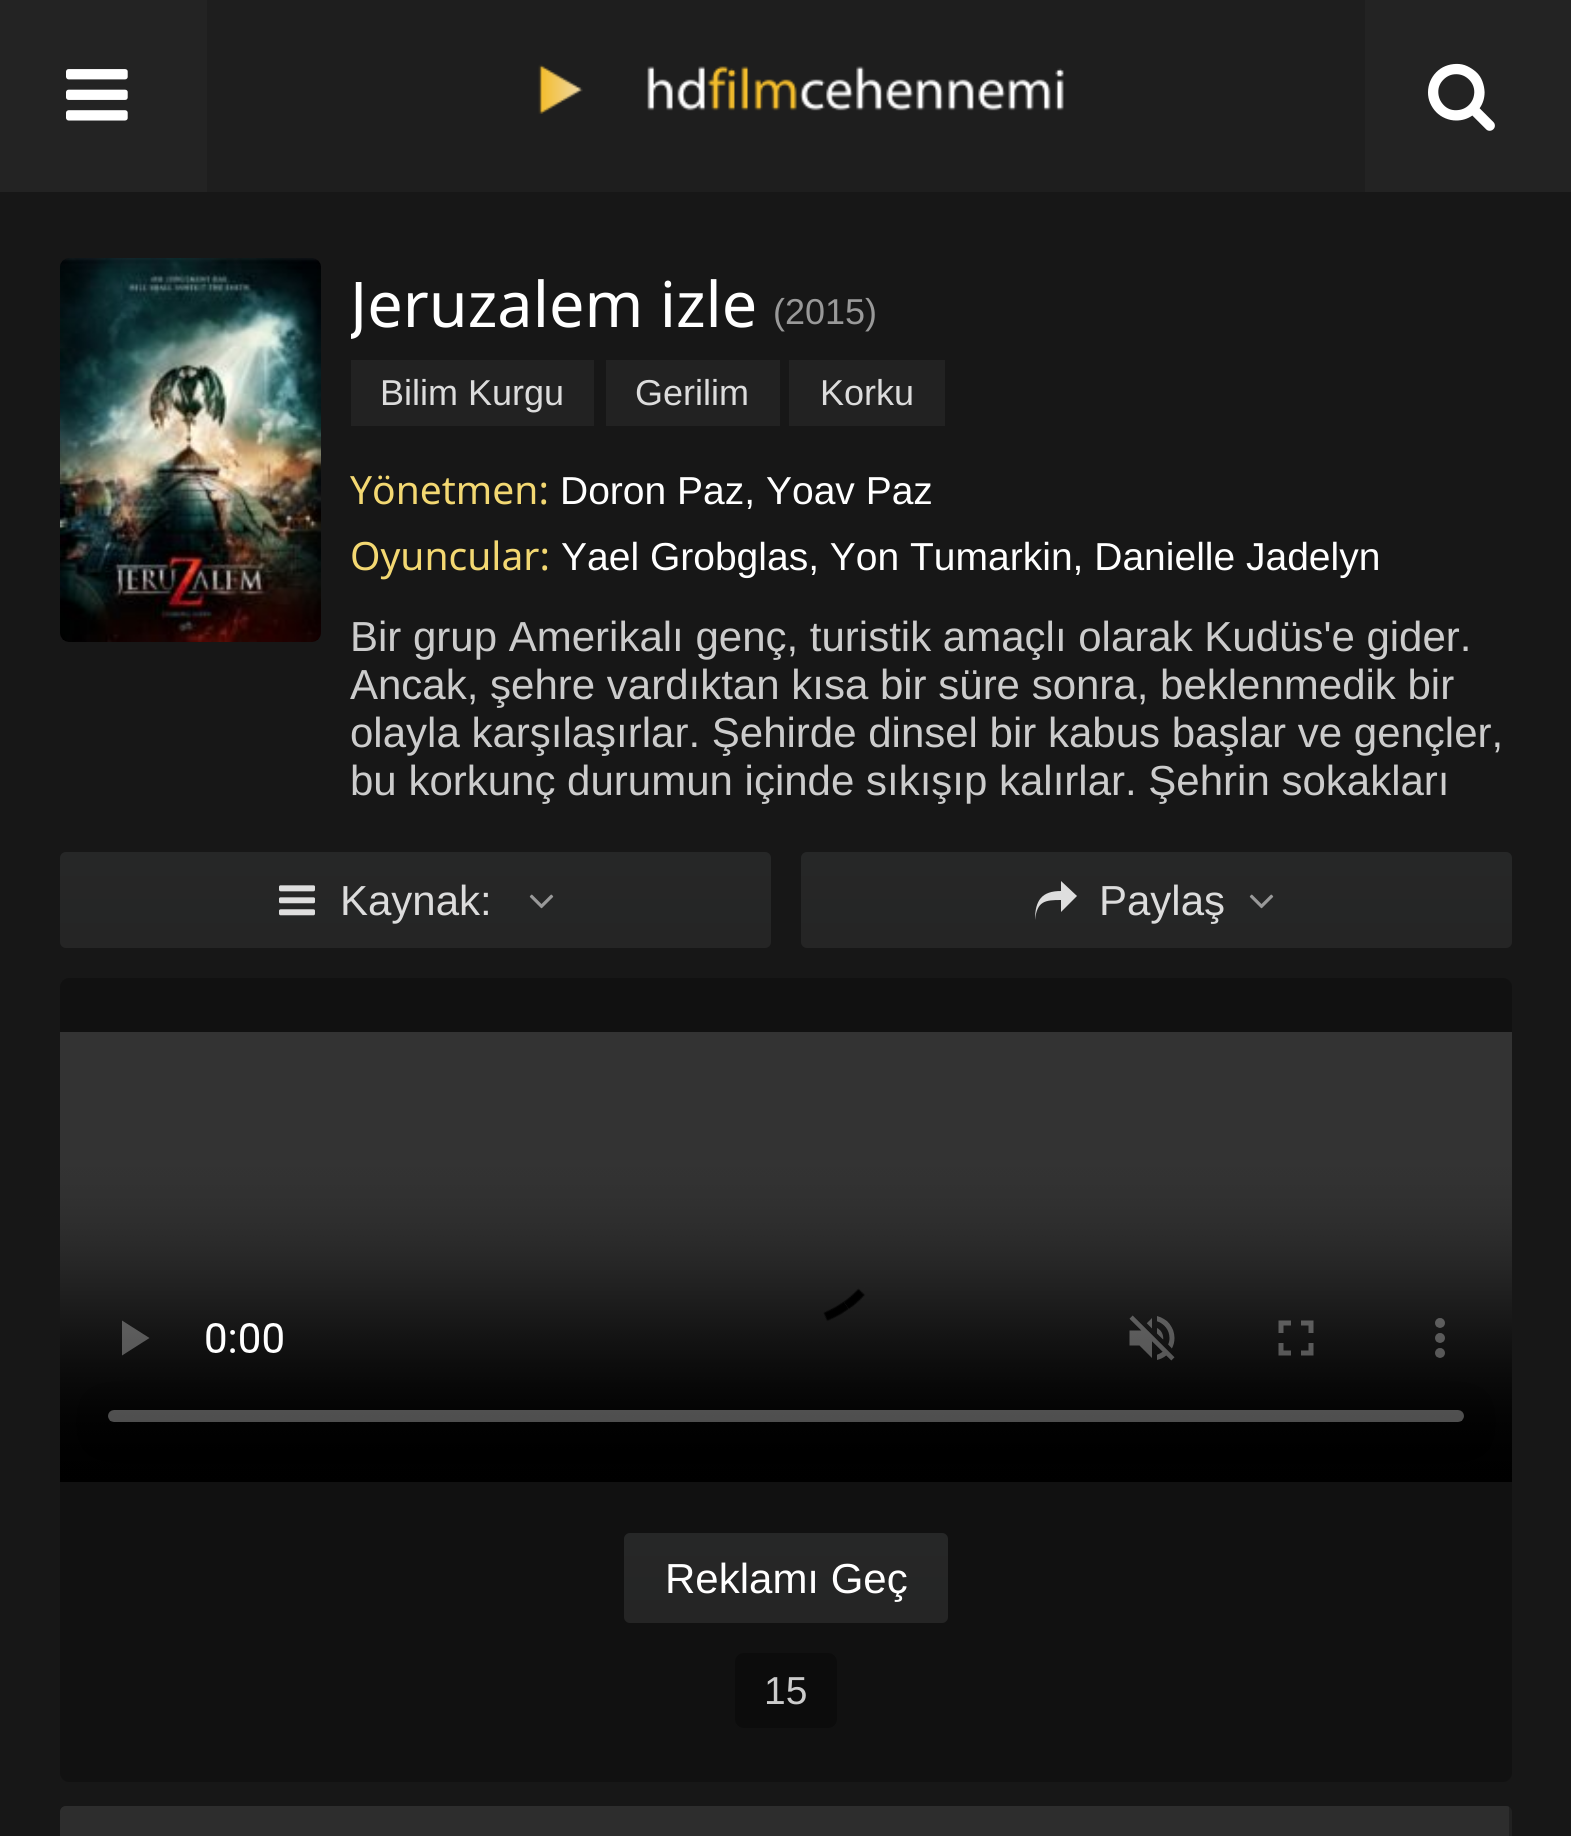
import math
import cairo

surface = cairo.ImageSurface(cairo.FORMAT_RGB24, 1571, 1836)
ctx = cairo.Context(surface)
options = cairo.FontOptions()
options.set_hint_metrics(cairo.HINT_METRICS_OFF)
options.set_hint_style(cairo.HINT_STYLE_NONE)
ctx.set_font_options(options)
ctx.set_miter_limit(4)


def set_color(code):
    ctx.set_source_rgb(*(v / 255 for v in bytes.fromhex(code[-6:])))


def draw_text(x, y, s, family, size, color, bold=False, italic=False):
    ctx.select_font_face(family, cairo.FONT_SLANT_ITALIC if italic else cairo.FONT_SLANT_NORMAL, cairo.FONT_WEIGHT_BOLD if bold else cairo.FONT_WEIGHT_NORMAL)
    ctx.set_font_size(size)
    set_color(color)
    ctx.move_to(x, y)
    ctx.show_text(s)


def fill_rect(x, y, w, h, color):
    set_color(color)
    ctx.rectangle(x, y, w, h)
    ctx.fill()


def rounded_rect(x, y, w, h, r):
    ctx.new_sub_path()
    for i, (u, v) in enumerate([(x + w - r, y + h - r), (x + r, y + h - r), (x + r, y + r), (x + w - r, y + r)]):
        ctx.arc(u, v, r, i * math.pi / 2, (i + 1) * math.pi / 2)
    ctx.close_path()


def draw_image(path, x, y, w, h):
    ctx.save()
    ctx.set_source_surface(cairo.ImageSurface.create_from_png(path), x, y)
    ctx.rectangle(x, y, w, h)
    ctx.fill()
    ctx.restore()


set_color("#171717")
ctx.paint()
fill_rect(207, 0, 1158, 192, "#1e1e1e")
fill_rect(0, 0, 207, 192, "#232323")
draw_image("assets/img1.png", 66, 69, 62, 52)
draw_image("assets/img2.png", 538, 64, 526, 50)
fill_rect(1365, 0, 206, 192, "#232323")
draw_image("assets/img3.png", 1428, 63, 67, 68)
draw_image("assets/img4.png", 60, 258, 261, 384)
ctx.save()
ctx.rectangle(351, 270, 408, 75)
ctx.clip()
draw_text(350, 327, "Jeruzalem izle", "Noto Sans", 63, "#ffffff")
ctx.restore()
draw_text(773, 324, "(2015)", "Liberation Sans", 36, "#999999")
fill_rect(351, 360, 243, 66, "#222222")
draw_text(380, 405, "Bilim Kurgu", "Liberation Sans", 36, "#dcdcdc")
fill_rect(606, 360, 174, 66, "#222222")
draw_text(635, 405, "Gerilim", "Liberation Sans", 36, "#dcdcdc")
fill_rect(789, 360, 156, 66, "#222222")
draw_text(820, 405, "Korku", "Liberation Sans", 36, "#dcdcdc")
draw_text(350, 504, "Yönetmen:", "Noto Sans", 39, "#f3d872")
draw_text(560, 504, "Doron Paz, Yoav Paz", "Liberation Sans", 39, "#ffffff")
draw_text(350, 570, "Oyuncular:", "Noto Sans", 39, "#f3d872")
draw_text(561, 570, "Yael Grobglas, Yon Tumarkin, Danielle Jadelyn", "Liberation Sans", 39, "#ffffff")
draw_text(350, 651, "Bir grup Amerikalı genç, turistik amaçlı olarak Kudüs'e gider.", "Liberation Sans", 42, "#cccccc")
draw_text(350, 699, "Ancak, şehre vardıktan kısa bir süre sonra, beklenmedik bir", "Liberation Sans", 42, "#cccccc")
draw_text(350, 747, "olayla karşılaşırlar. Şehirde dinsel bir kabus başlar ve gençler,", "Liberation Sans", 42, "#cccccc")
draw_text(350, 795, "bu korkunç durumun içinde sıkışıp kalırlar. Şehrin sokakları", "Liberation Sans", 42, "#cccccc")
gradient = cairo.LinearGradient(416, 852, 416, 948)
gradient.add_color_stop_rgba(0, 0.149, 0.153, 0.153, 1)
gradient.add_color_stop_rgba(1, 0.145, 0.145, 0.145, 1)
ctx.set_source(gradient)
rounded_rect(60, 852, 711, 96, 6)
ctx.fill()
draw_image("assets/img5.png", 279, 885, 36, 31)
draw_text(340, 915, "Kaynak:", "Liberation Sans", 42, "#dcdcdc")
draw_image("assets/img6.png", 529, 894, 25, 15)
gradient = cairo.LinearGradient(1157, 852, 1157, 948)
gradient.add_color_stop_rgba(0, 0.149, 0.153, 0.153, 1)
gradient.add_color_stop_rgba(1, 0.145, 0.145, 0.145, 1)
ctx.set_source(gradient)
rounded_rect(801, 852, 711, 96, 6)
ctx.fill()
set_color("#dedede")
ctx.new_path()
ctx.move_to(1035, 920)
ctx.curve_to(1035, 900, 1042, 891, 1061, 891)
ctx.line_to(1061, 881)
ctx.line_to(1077, 896)
ctx.line_to(1061, 912)
ctx.line_to(1061, 900)
ctx.curve_to(1045, 900, 1037, 901, 1035, 920)
ctx.close_path()
ctx.fill()
draw_text(1099, 915, "Paylaş", "Liberation Sans", 42, "#dcdcdc")
draw_image("assets/img6.png", 1249, 894, 25, 15)
set_color("#111111")
rounded_rect(60, 978, 1452, 804, 9)
ctx.fill()
draw_image("assets/img7.png", 60, 1032, 1452, 450)
gradient = cairo.LinearGradient(786, 1533, 786, 1623)
gradient.add_color_stop_rgba(0, 0.149, 0.153, 0.153, 1)
gradient.add_color_stop_rgba(1, 0.145, 0.145, 0.145, 1)
ctx.set_source(gradient)
rounded_rect(624, 1533, 324, 90, 6)
ctx.fill()
draw_text(665, 1593, "Reklamı Geç", "Liberation Sans", 42, "#ffffff")
set_color("#0c0c0c")
rounded_rect(735, 1653, 102, 75, 9)
ctx.fill()
draw_text(764, 1704, "15", "Liberation Sans", 39, "#cccccc")
set_color("#212121")
rounded_rect(60, 1806, 1452, 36, 6)
ctx.fill()
ctx.save()
rounded_rect(60, 1806, 1452, 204, 6)
ctx.clip()
set_color("#2d2d2d")
ctx.new_path()
ctx.move_to(66, 1806)
ctx.line_to(1509, 1806)
ctx.line_to(1509, 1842)
ctx.line_to(60, 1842)
ctx.line_to(60, 1812)
ctx.curve_to(60, 1808.5, 62.5, 1806, 66, 1806)
ctx.close_path()
ctx.fill()
ctx.restore()
surface.write_to_png("output.png")
